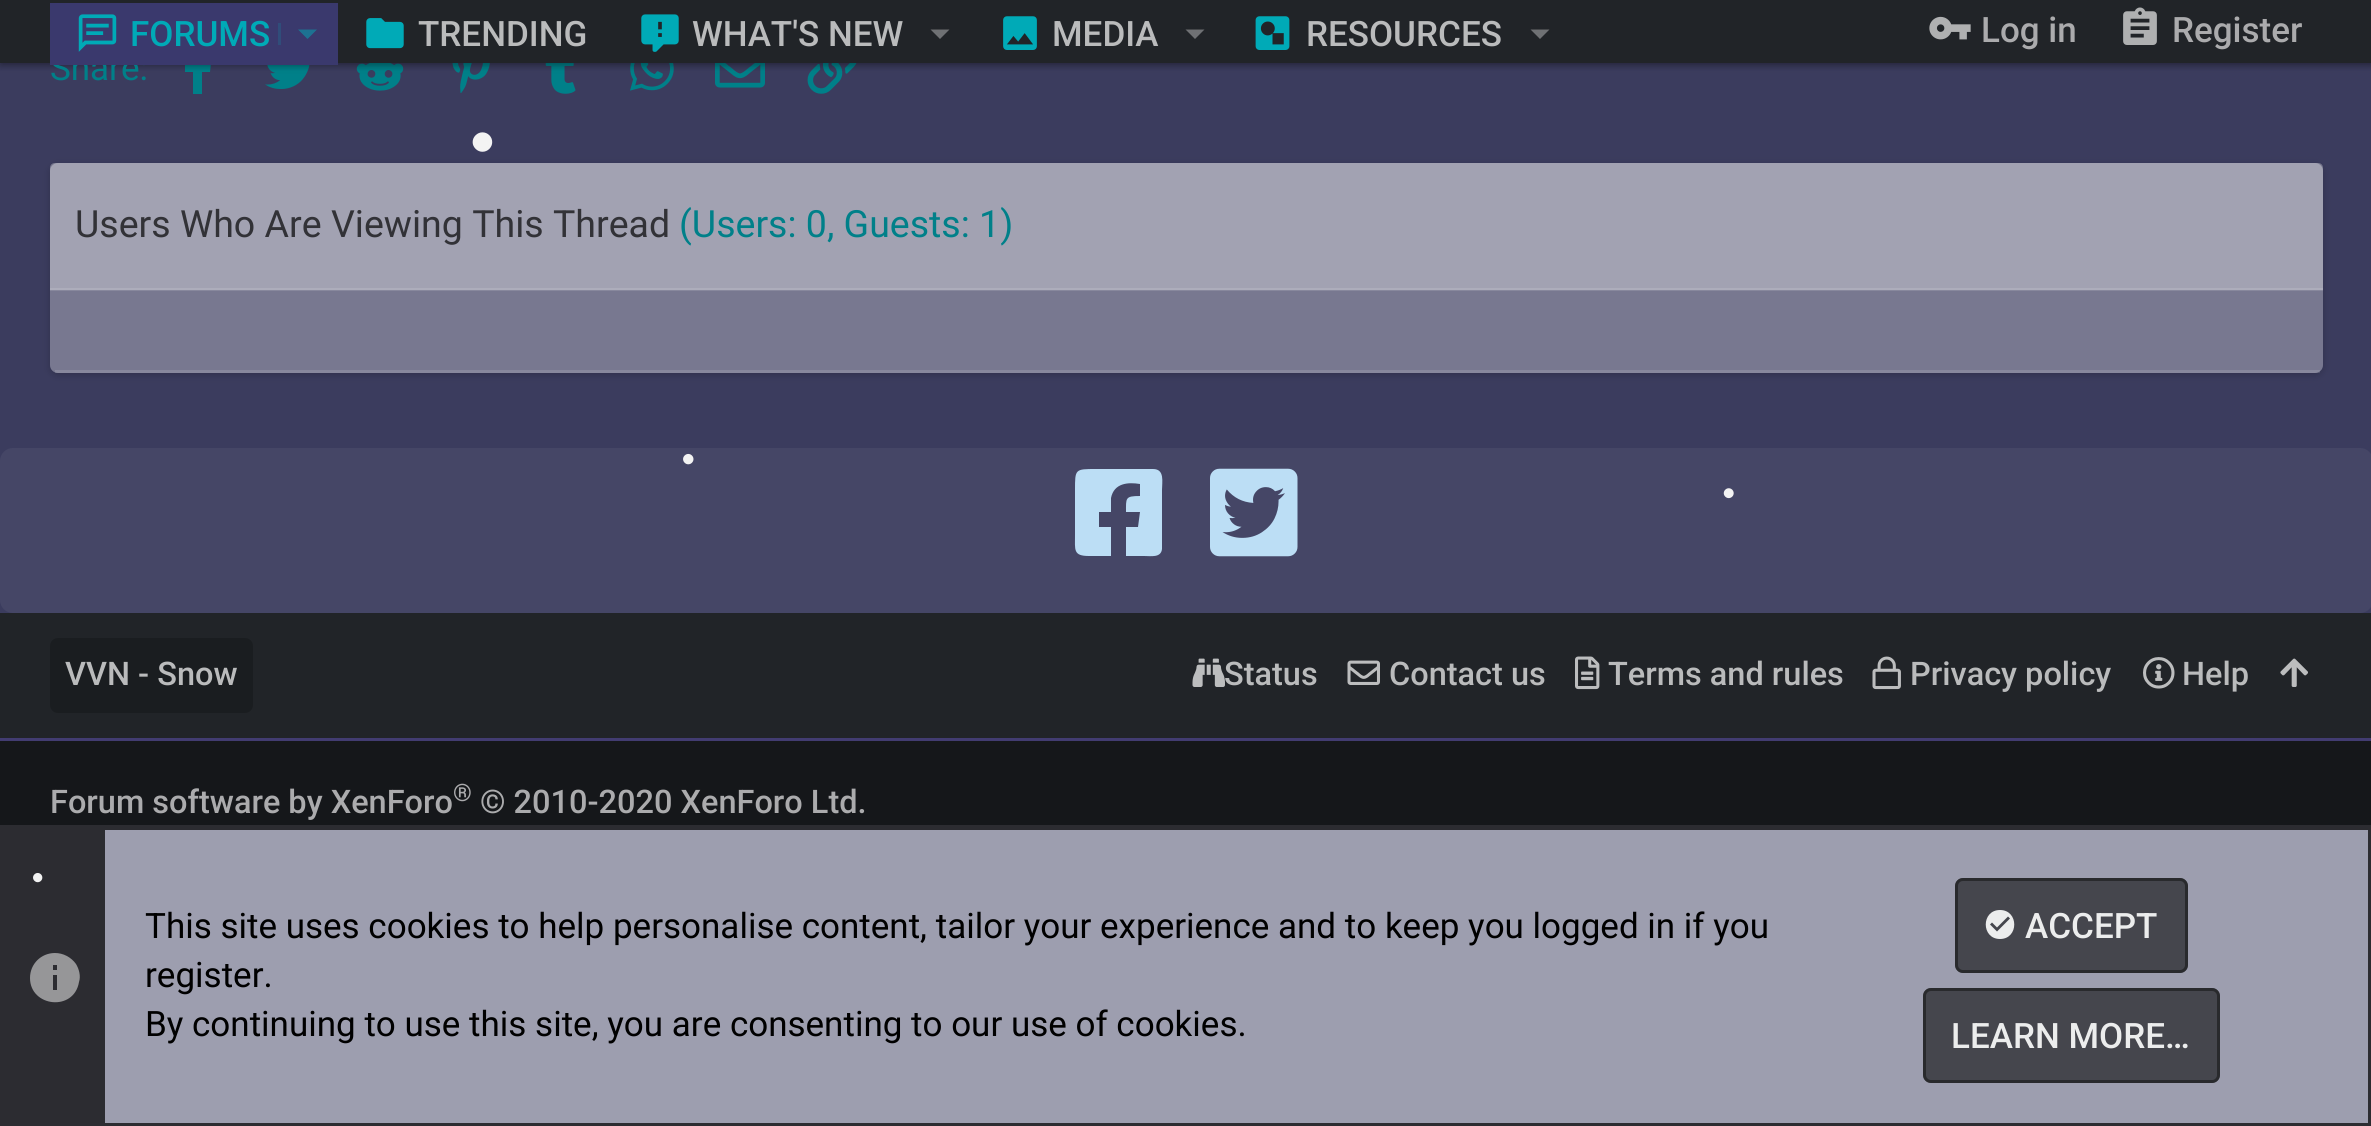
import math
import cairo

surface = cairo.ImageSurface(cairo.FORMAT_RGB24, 2371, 1126)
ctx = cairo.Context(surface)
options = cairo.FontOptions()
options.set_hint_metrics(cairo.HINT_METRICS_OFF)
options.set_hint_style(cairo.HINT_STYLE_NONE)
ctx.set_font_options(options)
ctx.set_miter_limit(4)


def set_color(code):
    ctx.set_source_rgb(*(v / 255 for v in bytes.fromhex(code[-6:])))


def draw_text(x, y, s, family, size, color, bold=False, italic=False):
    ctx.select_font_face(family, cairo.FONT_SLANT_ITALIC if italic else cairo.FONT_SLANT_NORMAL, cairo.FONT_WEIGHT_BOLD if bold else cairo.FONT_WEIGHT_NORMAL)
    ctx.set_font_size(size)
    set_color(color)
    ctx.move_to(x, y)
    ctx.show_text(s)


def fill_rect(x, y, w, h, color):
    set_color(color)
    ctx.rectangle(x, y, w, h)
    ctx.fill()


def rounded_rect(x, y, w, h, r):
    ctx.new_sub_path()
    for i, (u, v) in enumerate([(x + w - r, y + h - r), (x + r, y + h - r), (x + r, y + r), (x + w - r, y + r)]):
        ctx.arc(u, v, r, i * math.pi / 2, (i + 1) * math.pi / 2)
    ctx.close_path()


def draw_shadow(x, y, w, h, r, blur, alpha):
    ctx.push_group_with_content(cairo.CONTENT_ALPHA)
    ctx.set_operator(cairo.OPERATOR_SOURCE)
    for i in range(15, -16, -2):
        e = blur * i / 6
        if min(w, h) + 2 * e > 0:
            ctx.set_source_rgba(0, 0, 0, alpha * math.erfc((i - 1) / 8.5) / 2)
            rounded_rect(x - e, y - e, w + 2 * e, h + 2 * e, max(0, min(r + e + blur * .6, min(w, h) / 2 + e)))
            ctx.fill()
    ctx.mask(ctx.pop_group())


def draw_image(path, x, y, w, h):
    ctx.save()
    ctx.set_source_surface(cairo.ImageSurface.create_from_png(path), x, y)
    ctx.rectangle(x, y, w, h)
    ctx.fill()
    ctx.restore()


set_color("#3b3c5e")
ctx.paint()
set_color("#008089")
ctx.new_path()
ctx.move_to(210, 72)
ctx.line_to(202, 72)
ctx.line_to(202, 94)
ctx.line_to(193, 94)
ctx.line_to(193, 72)
ctx.line_to(185, 72)
ctx.line_to(185, 63)
ctx.line_to(193, 63)
ctx.curve_to(193, 46, 195, 43, 212, 44)
ctx.line_to(212, 52)
ctx.curve_to(202, 52, 202, 54, 202, 63)
ctx.line_to(211, 63)
ctx.close_path()
ctx.fill()
draw_image("assets/img8.png", 265, 65, 45, 24)
draw_image("assets/img9.png", 356, 63, 48, 28)
draw_image("assets/img10.png", 452, 63, 38, 30)
draw_image("assets/img11.png", 545, 63, 31, 31)
draw_image("assets/img12.png", 630, 63, 44, 28)
draw_image("assets/img13.png", 715, 63, 50, 25)
draw_image("assets/img14.png", 807, 63, 50, 31)
set_color("#000000")
draw_shadow(0, 3, 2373, 62, 0, 4, 0.2)
draw_shadow(0, 5, 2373, 63, 0, 2.5, 0.12)
draw_shadow(0, 0, 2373, 63, 0, 2.5, 0.14)
draw_text(50, 80, "Share:", "Roboto", 35, "#008089")
fill_rect(0, 0, 2371, 63, "#212428")
fill_rect(50, 3, 288, 62, "#3a396d")
draw_image("assets/img1.png", 78, 14, 39, 38)
draw_text(130, 46, "FORUMS", "Roboto Medium", 35, "#00aab7")
fill_rect(278, 23, 3, 22, "#304d7a")
set_color("#1d7292")
ctx.new_path()
ctx.move_to(298, 29.5)
ctx.line_to(307.5, 39)
ctx.line_to(317, 29.5)
ctx.close_path()
ctx.fill()
draw_image("assets/img2.png", 366, 18, 38, 31)
draw_text(418, 46, "TRENDING", "Roboto Medium", 35, "#babbbc")
draw_image("assets/img3.png", 641, 14, 38, 38)
draw_text(692, 46, "WHAT'S NEW", "Roboto Medium", 35, "#babbbc")
set_color("#6f7174")
ctx.new_path()
ctx.move_to(930.5, 29.5)
ctx.line_to(940, 39)
ctx.line_to(949.5, 29.5)
ctx.close_path()
ctx.fill()
draw_image("assets/img4.png", 1003, 16, 34, 34)
draw_text(1052, 46, "MEDIA", "Roboto Medium", 35, "#babbbc")
set_color("#6f7174")
ctx.new_path()
ctx.move_to(1185.5, 29.5)
ctx.line_to(1195, 39)
ctx.line_to(1204.5, 29.5)
ctx.close_path()
ctx.fill()
draw_image("assets/img5.png", 1255, 16, 35, 34)
draw_text(1306, 46, "RESOURCES", "Roboto Medium", 35, "#babbbc")
set_color("#6f7174")
ctx.new_path()
ctx.move_to(1530.5, 29.5)
ctx.line_to(1540, 39)
ctx.line_to(1549.5, 29.5)
ctx.close_path()
ctx.fill()
draw_image("assets/img6.png", 1929, 16, 42, 24)
draw_text(1981, 42, "Log in", "Roboto Medium", 35, "#ababad")
draw_image("assets/img7.png", 2123, 7, 34, 38)
draw_text(2172, 42, "Register", "Roboto Medium", 35, "#ababad")
ctx.save()
ctx.set_fill_rule(cairo.FILL_RULE_EVEN_ODD)
ctx.new_path()
ctx.move_to(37, 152)
ctx.line_to(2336, 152)
ctx.line_to(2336, 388)
ctx.line_to(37, 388)
ctx.close_path()
ctx.move_to(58, 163)
ctx.line_to(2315, 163)
ctx.curve_to(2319.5, 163, 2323, 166.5, 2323, 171)
ctx.line_to(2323, 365)
ctx.curve_to(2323, 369.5, 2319.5, 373, 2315, 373)
ctx.line_to(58, 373)
ctx.curve_to(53.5, 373, 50, 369.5, 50, 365)
ctx.line_to(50, 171)
ctx.curve_to(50, 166.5, 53.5, 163, 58, 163)
ctx.close_path()
ctx.clip()
set_color("#000000")
draw_shadow(50, 165, 2273, 210, 8, 4, 0.2)
ctx.restore()
ctx.set_source_rgba(1, 1, 1, 0.31)
rounded_rect(50, 163, 2273, 210, 8)
ctx.fill()
ctx.set_source_rgba(1, 1, 1, 0.12)
ctx.rectangle(55, 370, 2265, 3)
ctx.fill()
ctx.set_source_rgba(1, 1, 1, 0.31)
ctx.new_path()
ctx.move_to(55, 163)
ctx.line_to(2318, 163)
ctx.curve_to(2321, 163, 2323, 165, 2323, 168)
ctx.line_to(2323, 290)
ctx.line_to(50, 290)
ctx.line_to(50, 168)
ctx.curve_to(50, 165, 52, 163, 55, 163)
ctx.close_path()
ctx.fill()
ctx.set_source_rgba(1, 1, 1, 0.12)
ctx.rectangle(50, 288, 2273, 3)
ctx.fill()
draw_text(75, 237, "Users Who Are Viewing This Thread", "Roboto", 37.5, "#323237")
draw_text(679, 237, "(Users: 0, Guests: 1)", "Roboto", 37.5, "#008089")
set_color("#454666")
rounded_rect(0, 448, 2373, 165, 13)
ctx.fill()
set_color("#bcdef5")
ctx.new_path()
ctx.move_to(1153, 469)
ctx.curve_to(1165, 469, 1162, 482, 1162, 490)
ctx.line_to(1162, 549)
ctx.curve_to(1161, 558, 1151, 556, 1144, 556)
ctx.line_to(1126, 556)
ctx.line_to(1126, 527)
ctx.line_to(1138, 527)
ctx.line_to(1140, 512)
ctx.line_to(1126, 512)
ctx.curve_to(1126, 498, 1125, 496, 1140, 496)
ctx.line_to(1140, 484)
ctx.curve_to(1128, 482, 1114, 483, 1111, 498)
ctx.line_to(1111, 512)
ctx.line_to(1099, 512)
ctx.line_to(1099, 527)
ctx.line_to(1111, 527)
ctx.line_to(1111, 556)
ctx.line_to(1089, 556)
ctx.curve_to(1073, 556, 1075, 550, 1075, 535)
ctx.line_to(1075, 490)
ctx.curve_to(1075, 469, 1075, 469, 1096, 469)
ctx.close_path()
ctx.fill()
draw_image("assets/img15.png", 1210, 468, 88, 89)
fill_rect(0, 613, 2371, 125, "#212428")
set_color("#1a1d20")
rounded_rect(50, 638, 203, 75, 8)
ctx.fill()
draw_text(65, 685, "VVN - Snow", "Roboto Medium", 32.5, "#babbbc")
draw_image("assets/img16.png", 1192, 658, 33, 29)
draw_text(1224, 685, "Status", "Roboto Medium", 32.5, "#babbbc")
draw_image("assets/img17.png", 1347, 660, 33, 25)
draw_text(1389, 685, "Contact us", "Roboto Medium", 32.5, "#babbbc")
draw_image("assets/img18.png", 1575, 656, 25, 34)
draw_text(1608, 685, "Terms and rules", "Roboto Medium", 32.5, "#babbbc")
draw_image("assets/img19.png", 1872, 656, 29, 34)
draw_text(1910, 685, "Privacy policy", "Roboto Medium", 32.5, "#babbbc")
draw_image("assets/img20.png", 2143, 657, 32, 32)
draw_text(2182, 685, "Help", "Roboto Medium", 32.5, "#babbbc")
draw_image("assets/img21.png", 2280, 658, 28, 29)
fill_rect(0, 741, 2371, 84, "#15171a")
fill_rect(0, 738, 2371, 3, "#423c71")
draw_text(50, 813, "Forum software by XenForo", "Roboto Medium", 32.5, "#ababad")
draw_text(453, 801, "®", "Roboto Medium", 24, "#ababad")
draw_text(480, 813, "© 2010-2020 XenForo Ltd.", "Roboto Medium", 32.5, "#ababad")
draw_text(420, 185, "・", "WenQuanYi Zen Hei Medium", 122, "#f3f3f3")
draw_text(655, 482, "・", "WenQuanYi Zen Hei Medium", 65, "#f3f3f3")
draw_text(1697, 515, "・", "WenQuanYi Zen Hei Medium", 62, "#f3f3f3")
fill_rect(105, 830, 2263, 293, "#9d9eaf")
ctx.rectangle(2.5, 827.5, 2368, 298)
set_color("#2c2c31")
ctx.set_line_width(5)
ctx.stroke()
fill_rect(5, 830, 100, 293, "#2c2c31")
draw_text(8, 898, "・", "WenQuanYi Zen Hei Medium", 58, "#f3f3f3")
set_color("#969698")
ctx.new_path()
ctx.move_to(57, 970)
ctx.line_to(53, 970)
ctx.line_to(53, 965)
ctx.line_to(57, 965)
ctx.close_path()
ctx.move_to(57, 990)
ctx.line_to(53, 990)
ctx.line_to(53, 975)
ctx.line_to(57, 975)
ctx.close_path()
ctx.move_to(55, 953)
ctx.curve_to(41, 953, 30, 964, 30, 978)
ctx.curve_to(30, 1007, 74, 1012, 79, 982)
ctx.curve_to(81, 976, 79, 969, 76, 964)
ctx.curve_to(71, 957, 63, 953, 55, 953)
ctx.close_path()
ctx.fill()
draw_text(145, 938, "This site uses cookies to help personalise content, tailor your experience and to keep you logged in if you", "Roboto", 35, "#000000")
draw_text(145, 987, "register.", "Roboto", 35, "#000000")
draw_text(145, 1036, "By continuing to use this site, you are consenting to our use of cookies.", "Roboto", 35, "#000000")
set_color("#45464d")
rounded_rect(1955, 878, 233, 95, 8)
ctx.fill()
rounded_rect(1956.5, 879.5, 230, 92, 6.5)
ctx.set_source_rgba(0.078, 0.078, 0.078, 0.56)
ctx.set_line_width(3)
ctx.stroke()
set_color("#eceded")
ctx.new_path()
ctx.move_to(2000, 910)
ctx.curve_to(1981, 910, 1981, 939, 2000, 939)
ctx.curve_to(2019, 939, 2019, 910, 2000, 910)
ctx.close_path()
ctx.move_to(1997, 931.5)
ctx.line_to(1990, 924.5)
ctx.line_to(1992, 922.5)
ctx.line_to(1997, 927.5)
ctx.line_to(2008, 916.5)
ctx.line_to(2010, 918.5)
ctx.close_path()
ctx.fill()
draw_text(2025, 938, "ACCEPT", "Roboto Medium", 35, "#eceded")
set_color("#45464d")
rounded_rect(1923, 988, 297, 95, 8)
ctx.fill()
rounded_rect(1924.5, 989.5, 294, 92, 6.5)
ctx.set_source_rgba(0.078, 0.078, 0.078, 0.56)
ctx.stroke()
draw_text(1951, 1048, "LEARN MORE…", "Roboto Medium", 35, "#eceded")
surface.write_to_png("output.png")
